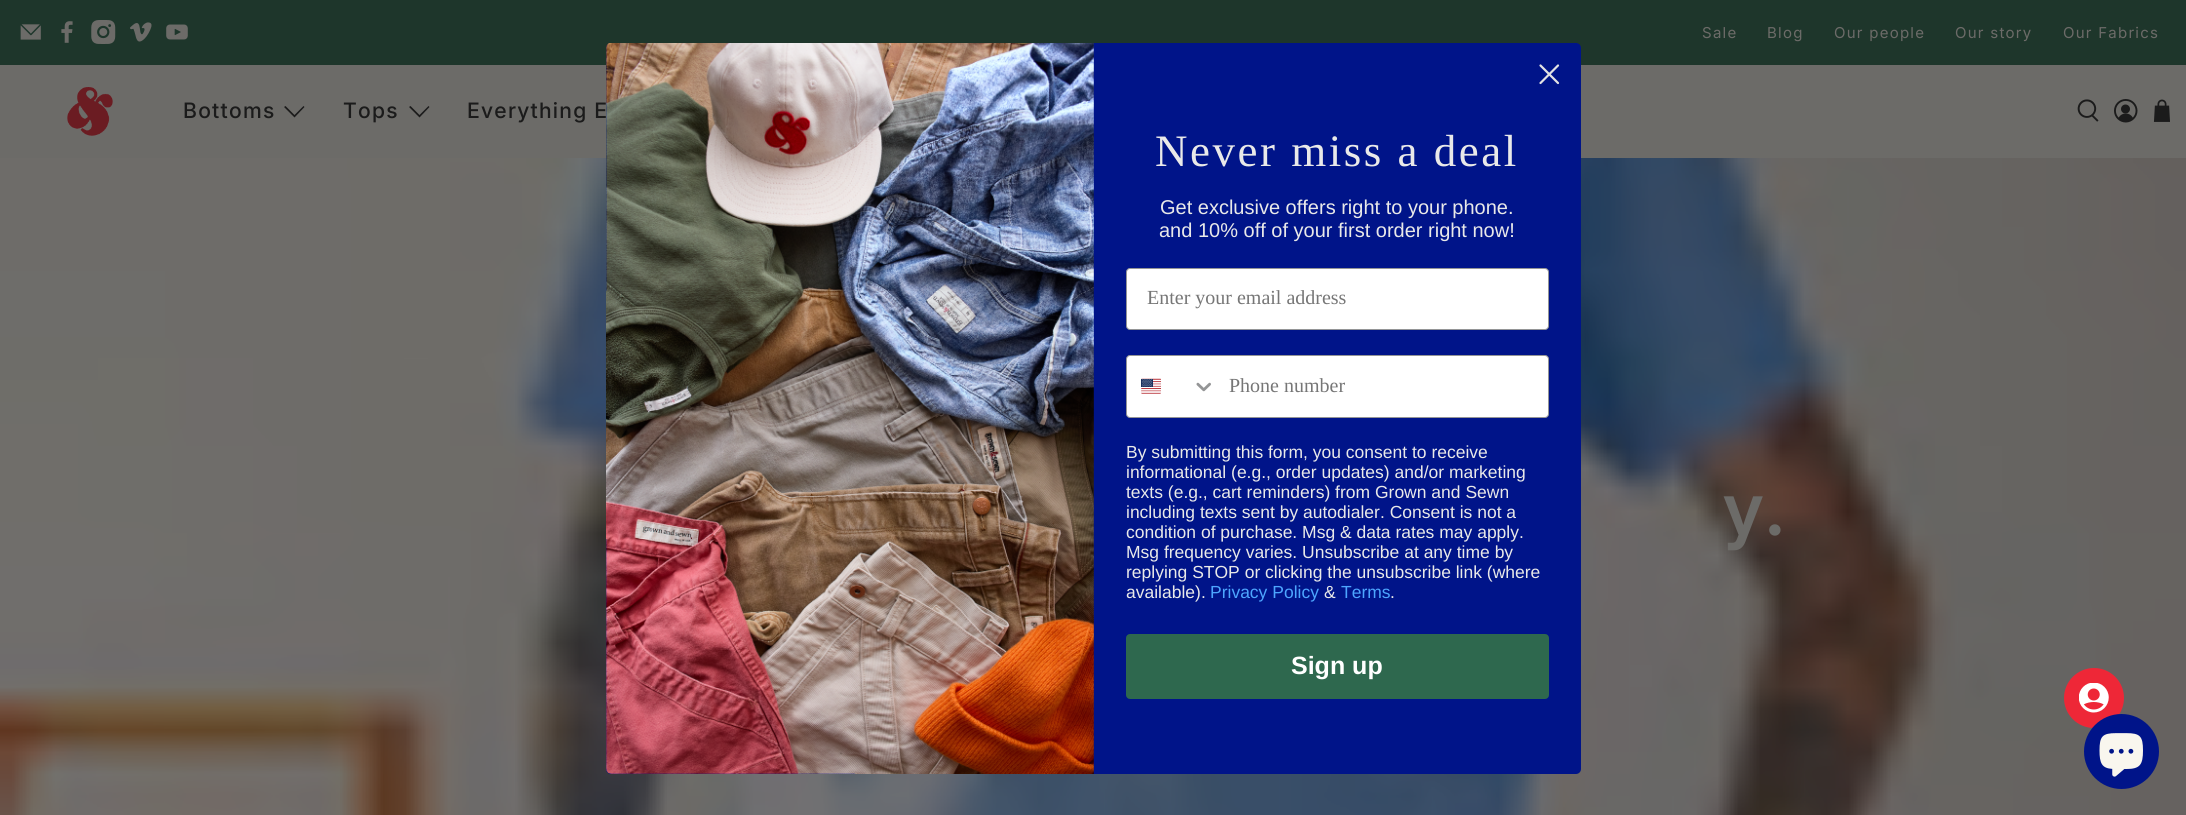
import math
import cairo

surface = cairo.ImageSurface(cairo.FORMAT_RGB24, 2186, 815)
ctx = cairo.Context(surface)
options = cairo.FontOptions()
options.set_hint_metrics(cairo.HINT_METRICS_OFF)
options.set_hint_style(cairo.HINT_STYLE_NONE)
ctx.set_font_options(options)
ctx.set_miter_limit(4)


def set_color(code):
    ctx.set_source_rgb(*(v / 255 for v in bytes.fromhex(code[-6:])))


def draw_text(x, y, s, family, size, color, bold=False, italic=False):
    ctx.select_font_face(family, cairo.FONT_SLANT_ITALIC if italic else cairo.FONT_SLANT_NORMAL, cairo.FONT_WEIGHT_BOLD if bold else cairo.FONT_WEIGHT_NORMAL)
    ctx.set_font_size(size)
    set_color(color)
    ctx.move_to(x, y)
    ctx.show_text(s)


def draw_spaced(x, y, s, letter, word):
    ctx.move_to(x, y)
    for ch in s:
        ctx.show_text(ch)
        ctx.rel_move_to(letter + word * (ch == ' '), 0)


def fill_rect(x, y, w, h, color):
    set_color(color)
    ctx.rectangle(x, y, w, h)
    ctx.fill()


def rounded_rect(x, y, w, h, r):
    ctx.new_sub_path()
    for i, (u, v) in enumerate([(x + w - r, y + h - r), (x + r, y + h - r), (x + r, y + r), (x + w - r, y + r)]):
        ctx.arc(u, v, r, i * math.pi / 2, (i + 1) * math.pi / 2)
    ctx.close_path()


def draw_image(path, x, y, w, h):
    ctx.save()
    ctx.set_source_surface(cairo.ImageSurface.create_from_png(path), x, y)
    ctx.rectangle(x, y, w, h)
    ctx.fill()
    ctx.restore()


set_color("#6c6b68")
ctx.paint()
fill_rect(0, 0, 2186, 65, "#1e362b")
draw_image("assets/img1.png", 20, 24, 21, 16)
draw_image("assets/img2.png", 61, 21, 12, 22)
draw_image("assets/img3.png", 91, 20, 25, 24)
draw_image("assets/img4.png", 130, 22, 22, 20)
draw_image("assets/img5.png", 166, 24, 22, 16)
ctx.select_font_face("Inter")
ctx.set_font_size(15)
set_color("#6c6b68")
draw_spaced(1702, 38, "Sale", 1.25, 0)
draw_spaced(1767, 38, "Blog", 1.25, 0)
draw_spaced(1834, 38, "Our people", 1.25, 0)
draw_spaced(1955, 38, "Our story", 1.25, 0)
draw_spaced(2063, 38, "Our Fabrics", 1.25, 0)
draw_image("assets/img6.png", 67, 87, 46, 49)
ctx.select_font_face("Inter Medium")
ctx.set_font_size(21.25)
set_color("#1b1b1b")
draw_spaced(183, 118, "Bottoms", 1.25, 0)
ctx.new_path()
ctx.move_to(294.5, 117.5)
ctx.line_to(284, 107)
ctx.line_to(285.5, 106)
ctx.line_to(294.5, 115)
ctx.line_to(303.5, 106)
ctx.line_to(304.5, 107)
ctx.close_path()
ctx.fill()
draw_spaced(343, 118, "Tops", 1.25, 0)
ctx.new_path()
ctx.move_to(419.5, 117.5)
ctx.line_to(409, 107)
ctx.line_to(410.5, 106)
ctx.line_to(419.5, 115)
ctx.line_to(428.5, 106)
ctx.line_to(429.5, 107)
ctx.close_path()
ctx.fill()
draw_spaced(467, 118, "Everything E", 1.25, 0)
draw_image("assets/img7.png", 2077, 99, 22, 23)
draw_image("assets/img8.png", 2114, 99, 24, 24)
draw_image("assets/img9.png", 2153, 99, 17, 23)
draw_image("assets/img13.png", 0, 158, 2186, 657)
set_color("#001489")
rounded_rect(606, 43, 975, 731, 5)
ctx.fill()
ctx.new_path()
ctx.move_to(1540.5, 65.5)
ctx.line_to(1558, 83)
ctx.move_to(1540.5, 83)
ctx.line_to(1558, 65.5)
ctx.close_path()
set_color("#e3e3e3")
ctx.set_line_width(2.2)
ctx.set_line_cap(cairo.LINE_CAP_ROUND)
ctx.set_line_join(cairo.LINE_JOIN_ROUND)
ctx.stroke()
draw_image("assets/img10.png", 606, 43, 488, 731)
ctx.select_font_face("Liberation Serif")
ctx.set_font_size(45)
set_color("#e9e9e9")
draw_spaced(1155, 166, "Never miss a deal", 2.5, 0)
draw_text(1160, 214, "Get exclusive offers right to your phone.", "Liberation Sans", 20, "#e9e9e9")
draw_text(1159, 237, "and 10% off of your first order right now!", "Liberation Sans", 20, "#e9e9e9")
set_color("#ffffff")
rounded_rect(1126.5, 268.5, 422, 61, 3.5)
ctx.fill_preserve()
set_color("#949596")
ctx.set_line_width(1)
ctx.set_line_cap(cairo.LINE_CAP_BUTT)
ctx.set_line_join(cairo.LINE_JOIN_MITER)
ctx.stroke()
draw_text(1147, 304, "Enter your email address", "Liberation Serif", 20, "#767676")
set_color("#ffffff")
rounded_rect(1126.5, 355.5, 422, 62, 3.5)
ctx.fill_preserve()
set_color("#949596")
ctx.stroke()
draw_image("assets/img11.png", 1141, 378, 20, 16)
draw_image("assets/img12.png", 1196, 382, 15, 10)
draw_text(1229, 392, "Phone number", "Liberation Serif", 20, "#767676")
draw_text(1126, 458, "By submitting this form, you consent to receive", "Liberation Sans", 17.5, "#e9e9e9")
draw_text(1126, 478, "informational (e.g., order updates) and/or marketing", "Liberation Sans", 17.5, "#e9e9e9")
draw_text(1126, 498, "texts (e.g., cart reminders) from Grown and Sewn", "Liberation Sans", 17.5, "#e9e9e9")
draw_text(1126, 518, "including texts sent by autodialer. Consent is not a", "Liberation Sans", 17.5, "#e9e9e9")
draw_text(1126, 538, "condition of purchase. Msg & data rates may apply.", "Liberation Sans", 17.5, "#e9e9e9")
draw_text(1126, 558, "Msg frequency varies. Unsubscribe at any time by", "Liberation Sans", 17.5, "#e9e9e9")
draw_text(1126, 578, "replying STOP or clicking the unsubscribe link (where", "Liberation Sans", 17.5, "#e9e9e9")
draw_text(1126, 598, "available).", "Liberation Sans", 17.5, "#e9e9e9")
draw_text(1210, 598, "Privacy Policy", "Liberation Sans", 17.5, "#4da6ff")
draw_text(1324, 598, "&", "Liberation Sans", 17.5, "#e9e9e9")
draw_text(1341, 598, "Terms", "Liberation Sans", 17.5, "#4da6ff")
draw_text(1390, 598, ".", "Liberation Sans", 17.5, "#e9e9e9")
set_color("#2e684e")
rounded_rect(1129, 637, 417, 59, 1)
ctx.fill_preserve()
ctx.set_line_width(6)
ctx.stroke()
draw_text(1291, 674, "Sign up", "Liberation Sans", 25, "#ffffff", bold=True)
ctx.select_font_face("Inter SemiBold")
ctx.set_font_size(75)
set_color("#6c6b68")
draw_spaced(1723, 535, "y.", 2.5, 0)
set_color("#ee2737")
ctx.new_path()
ctx.arc(2094, 698, 30, 0, 2 * math.pi)
ctx.fill()
draw_image("assets/img14.png", 2079, 683, 30, 30)
set_color("#001489")
ctx.arc(2121.5, 751.5, 37.5, 0, 2 * math.pi)
ctx.fill()
draw_image("assets/img15.png", 2099, 733, 44, 44)
surface.write_to_png("output.png")
